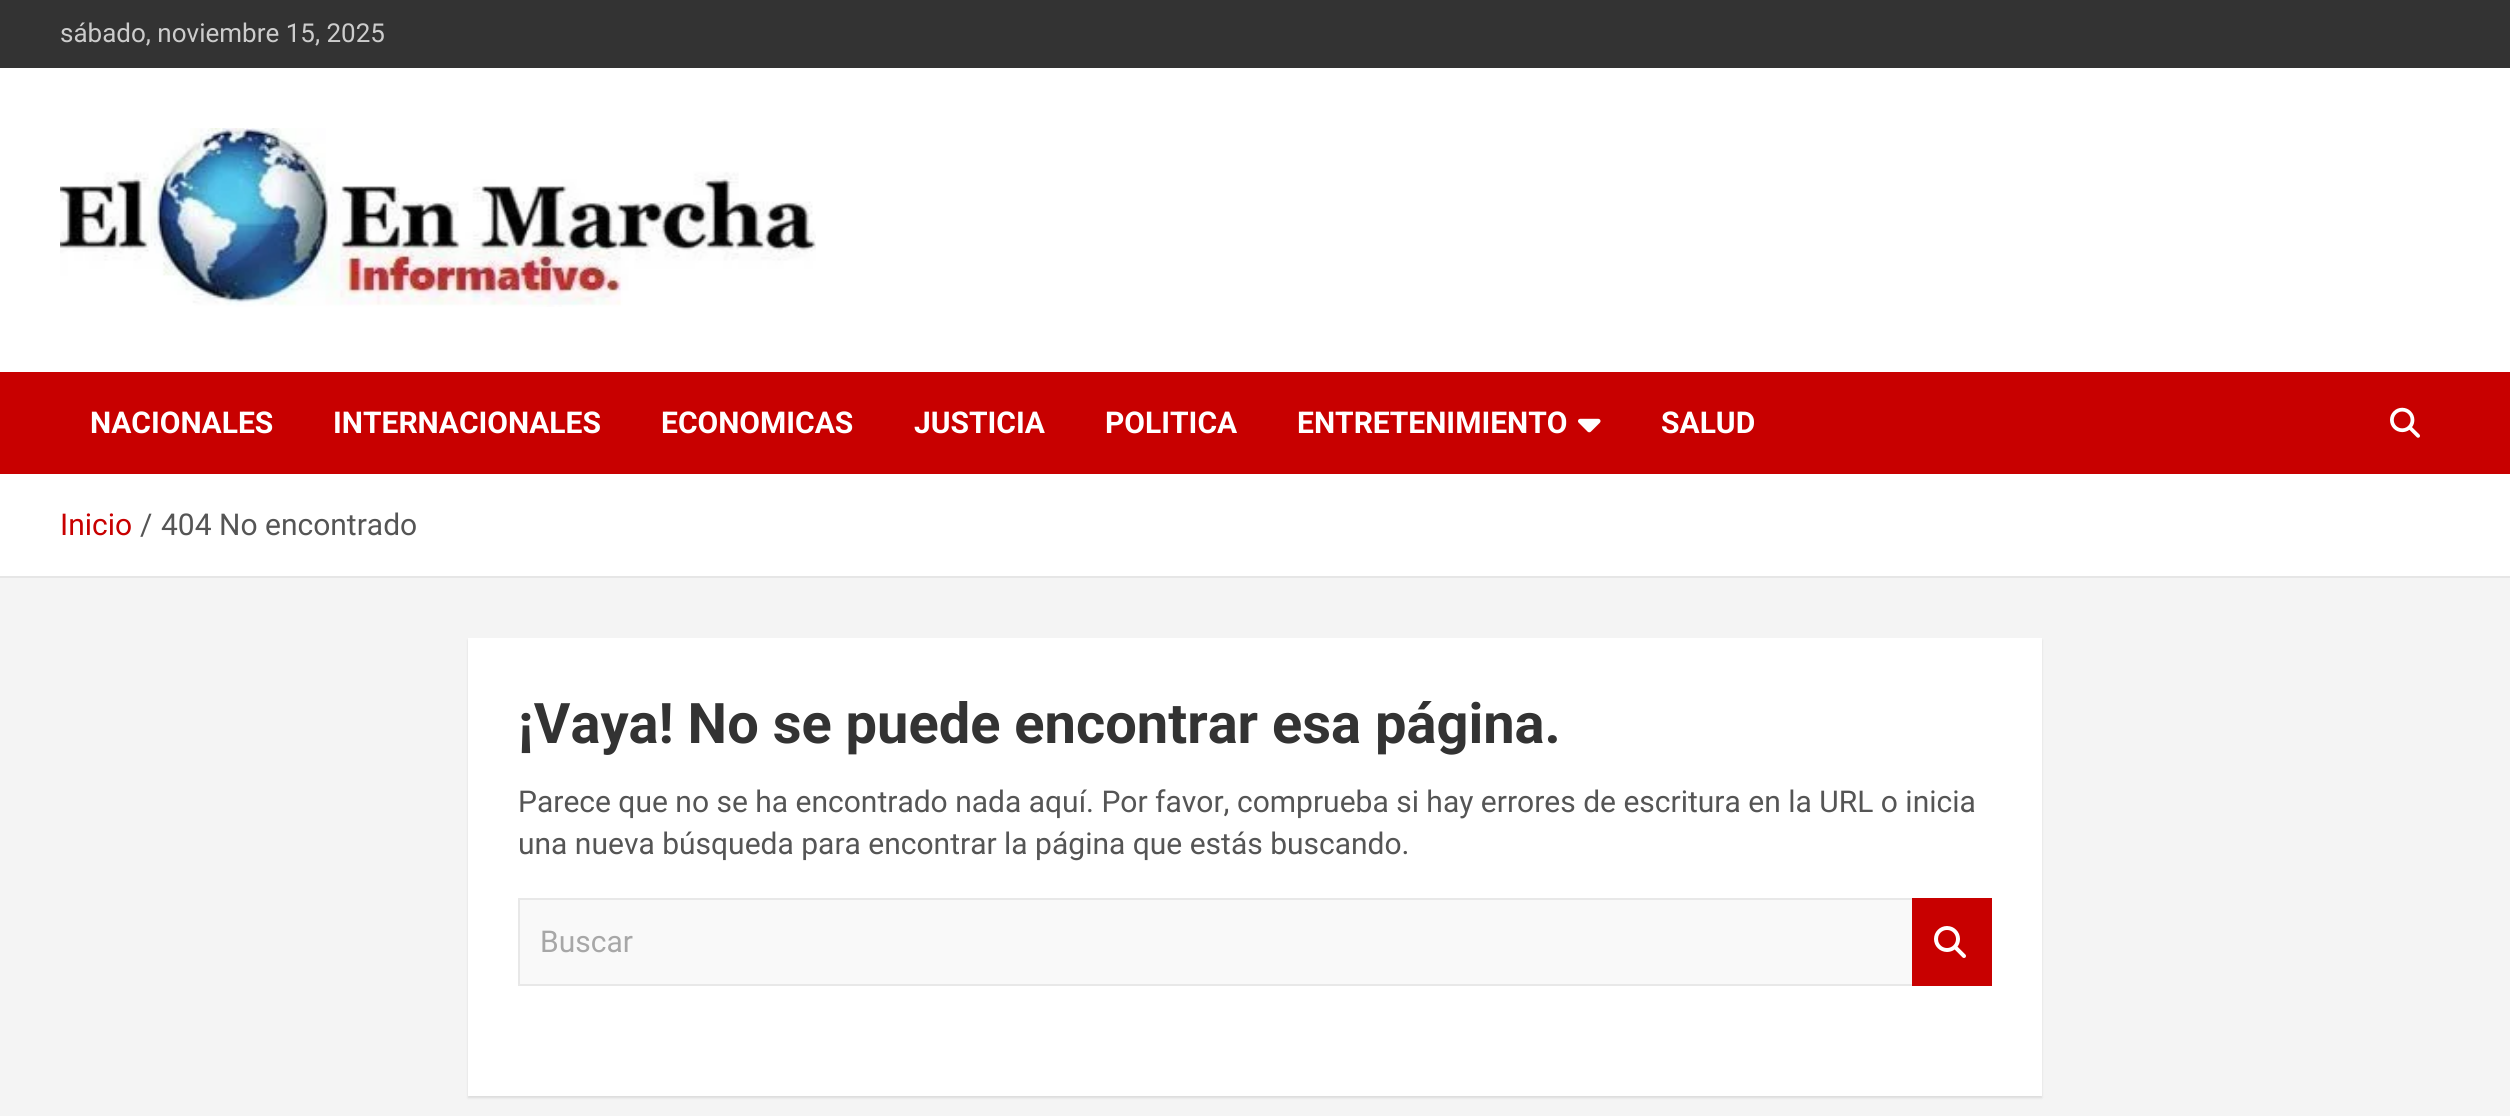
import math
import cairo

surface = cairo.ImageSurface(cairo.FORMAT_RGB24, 2510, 1116)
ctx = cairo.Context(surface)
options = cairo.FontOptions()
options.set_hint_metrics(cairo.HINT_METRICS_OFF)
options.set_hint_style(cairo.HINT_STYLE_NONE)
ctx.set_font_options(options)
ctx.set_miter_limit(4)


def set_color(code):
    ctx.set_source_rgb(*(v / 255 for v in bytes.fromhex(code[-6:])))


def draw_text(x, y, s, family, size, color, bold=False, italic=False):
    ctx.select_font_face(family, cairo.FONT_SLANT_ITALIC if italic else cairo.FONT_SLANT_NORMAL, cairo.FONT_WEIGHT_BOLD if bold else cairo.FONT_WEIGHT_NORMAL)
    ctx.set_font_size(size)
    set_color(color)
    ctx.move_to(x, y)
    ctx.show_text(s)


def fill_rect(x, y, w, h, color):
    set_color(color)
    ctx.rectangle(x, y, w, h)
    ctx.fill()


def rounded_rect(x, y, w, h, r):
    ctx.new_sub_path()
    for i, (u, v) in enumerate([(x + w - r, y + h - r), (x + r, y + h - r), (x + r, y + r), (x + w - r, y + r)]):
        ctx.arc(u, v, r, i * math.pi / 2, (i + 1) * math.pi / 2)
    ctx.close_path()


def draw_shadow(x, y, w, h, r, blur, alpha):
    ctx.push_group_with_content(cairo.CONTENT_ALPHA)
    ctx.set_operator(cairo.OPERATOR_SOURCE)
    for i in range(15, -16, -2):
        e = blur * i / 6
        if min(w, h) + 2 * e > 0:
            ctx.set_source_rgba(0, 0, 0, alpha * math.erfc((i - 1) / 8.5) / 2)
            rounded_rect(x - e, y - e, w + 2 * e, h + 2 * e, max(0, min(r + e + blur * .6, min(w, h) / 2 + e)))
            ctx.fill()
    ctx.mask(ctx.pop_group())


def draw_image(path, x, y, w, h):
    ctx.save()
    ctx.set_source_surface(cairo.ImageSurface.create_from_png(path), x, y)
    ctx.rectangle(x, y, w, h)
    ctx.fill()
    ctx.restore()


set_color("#f4f4f4")
ctx.paint()
fill_rect(0, 0, 2510, 68, "#333333")
draw_text(60, 42, "sábado, noviembre 15, 2025", "Roboto", 26, "#cccccc")
fill_rect(0, 68, 2510, 304, "#ffffff")
draw_image("assets/img1.png", 60, 128, 756, 179)
fill_rect(0, 372, 2510, 102, "#c80000")
draw_text(90, 433, "NACIONALES", "Roboto", 30, "#ffffff", bold=True)
draw_text(333, 433, "INTERNACIONALES", "Roboto", 30, "#ffffff", bold=True)
draw_text(661, 433, "ECONOMICAS", "Roboto", 30, "#ffffff", bold=True)
draw_text(914, 433, "JUSTICIA", "Roboto", 30, "#ffffff", bold=True)
draw_text(1105, 433, "POLITICA", "Roboto", 30, "#ffffff", bold=True)
draw_text(1297, 433, "ENTRETENIMIENTO", "Roboto", 30, "#ffffff", bold=True)
draw_image("assets/img2.png", 1578, 418, 23, 15)
draw_text(1661, 433, "SALUD", "Roboto", 30, "#ffffff", bold=True)
draw_image("assets/img3.png", 2390, 407, 30, 31)
fill_rect(0, 474, 2510, 102, "#ffffff")
fill_rect(0, 576, 2510, 2, "#e6e6e6")
draw_text(60, 535, "Inicio", "Roboto", 30, "#c80000")
draw_text(140, 535, "/", "Roboto", 30, "#555555")
draw_text(161, 535, "404 No encontrado", "Roboto", 30, "#555555")
set_color("#000000")
draw_shadow(468, 640, 1574, 458, 0, 1, 0.1)
fill_rect(468, 638, 1574, 458, "#ffffff")
draw_text(518, 743, "¡Vaya! No se puede encontrar esa página.", "Roboto", 56, "#333333", bold=True)
draw_text(518, 812, "Parece que no se ha encontrado nada aquí. Por favor, comprueba si hay errores de escritura en la URL o inicia", "Roboto", 30, "#555555")
draw_text(518, 854, "una nueva búsqueda para encontrar la página que estás buscando.", "Roboto", 30, "#555555")
fill_rect(520, 900, 1392, 84, "#f9f9f9")
set_color("#e8e8e8")
ctx.new_path()
ctx.move_to(518, 898)
ctx.line_to(1912, 898)
ctx.line_to(1912, 900)
ctx.line_to(520, 900)
ctx.close_path()
ctx.fill()
ctx.new_path()
ctx.move_to(1912, 986)
ctx.line_to(518, 986)
ctx.line_to(520, 984)
ctx.line_to(1912, 984)
ctx.close_path()
ctx.fill()
ctx.set_source_rgba(0, 0, 0, 0.09)
ctx.new_path()
ctx.move_to(518, 986)
ctx.line_to(518, 898)
ctx.line_to(520, 900)
ctx.line_to(520, 984)
ctx.close_path()
ctx.fill()
draw_text(540, 952, "Buscar", "Roboto", 30, "#a7a7a7")
fill_rect(1912, 898, 80, 88, "#c80000")
draw_image("assets/img4.png", 1934, 926, 32, 32)
surface.write_to_png("output.png")
